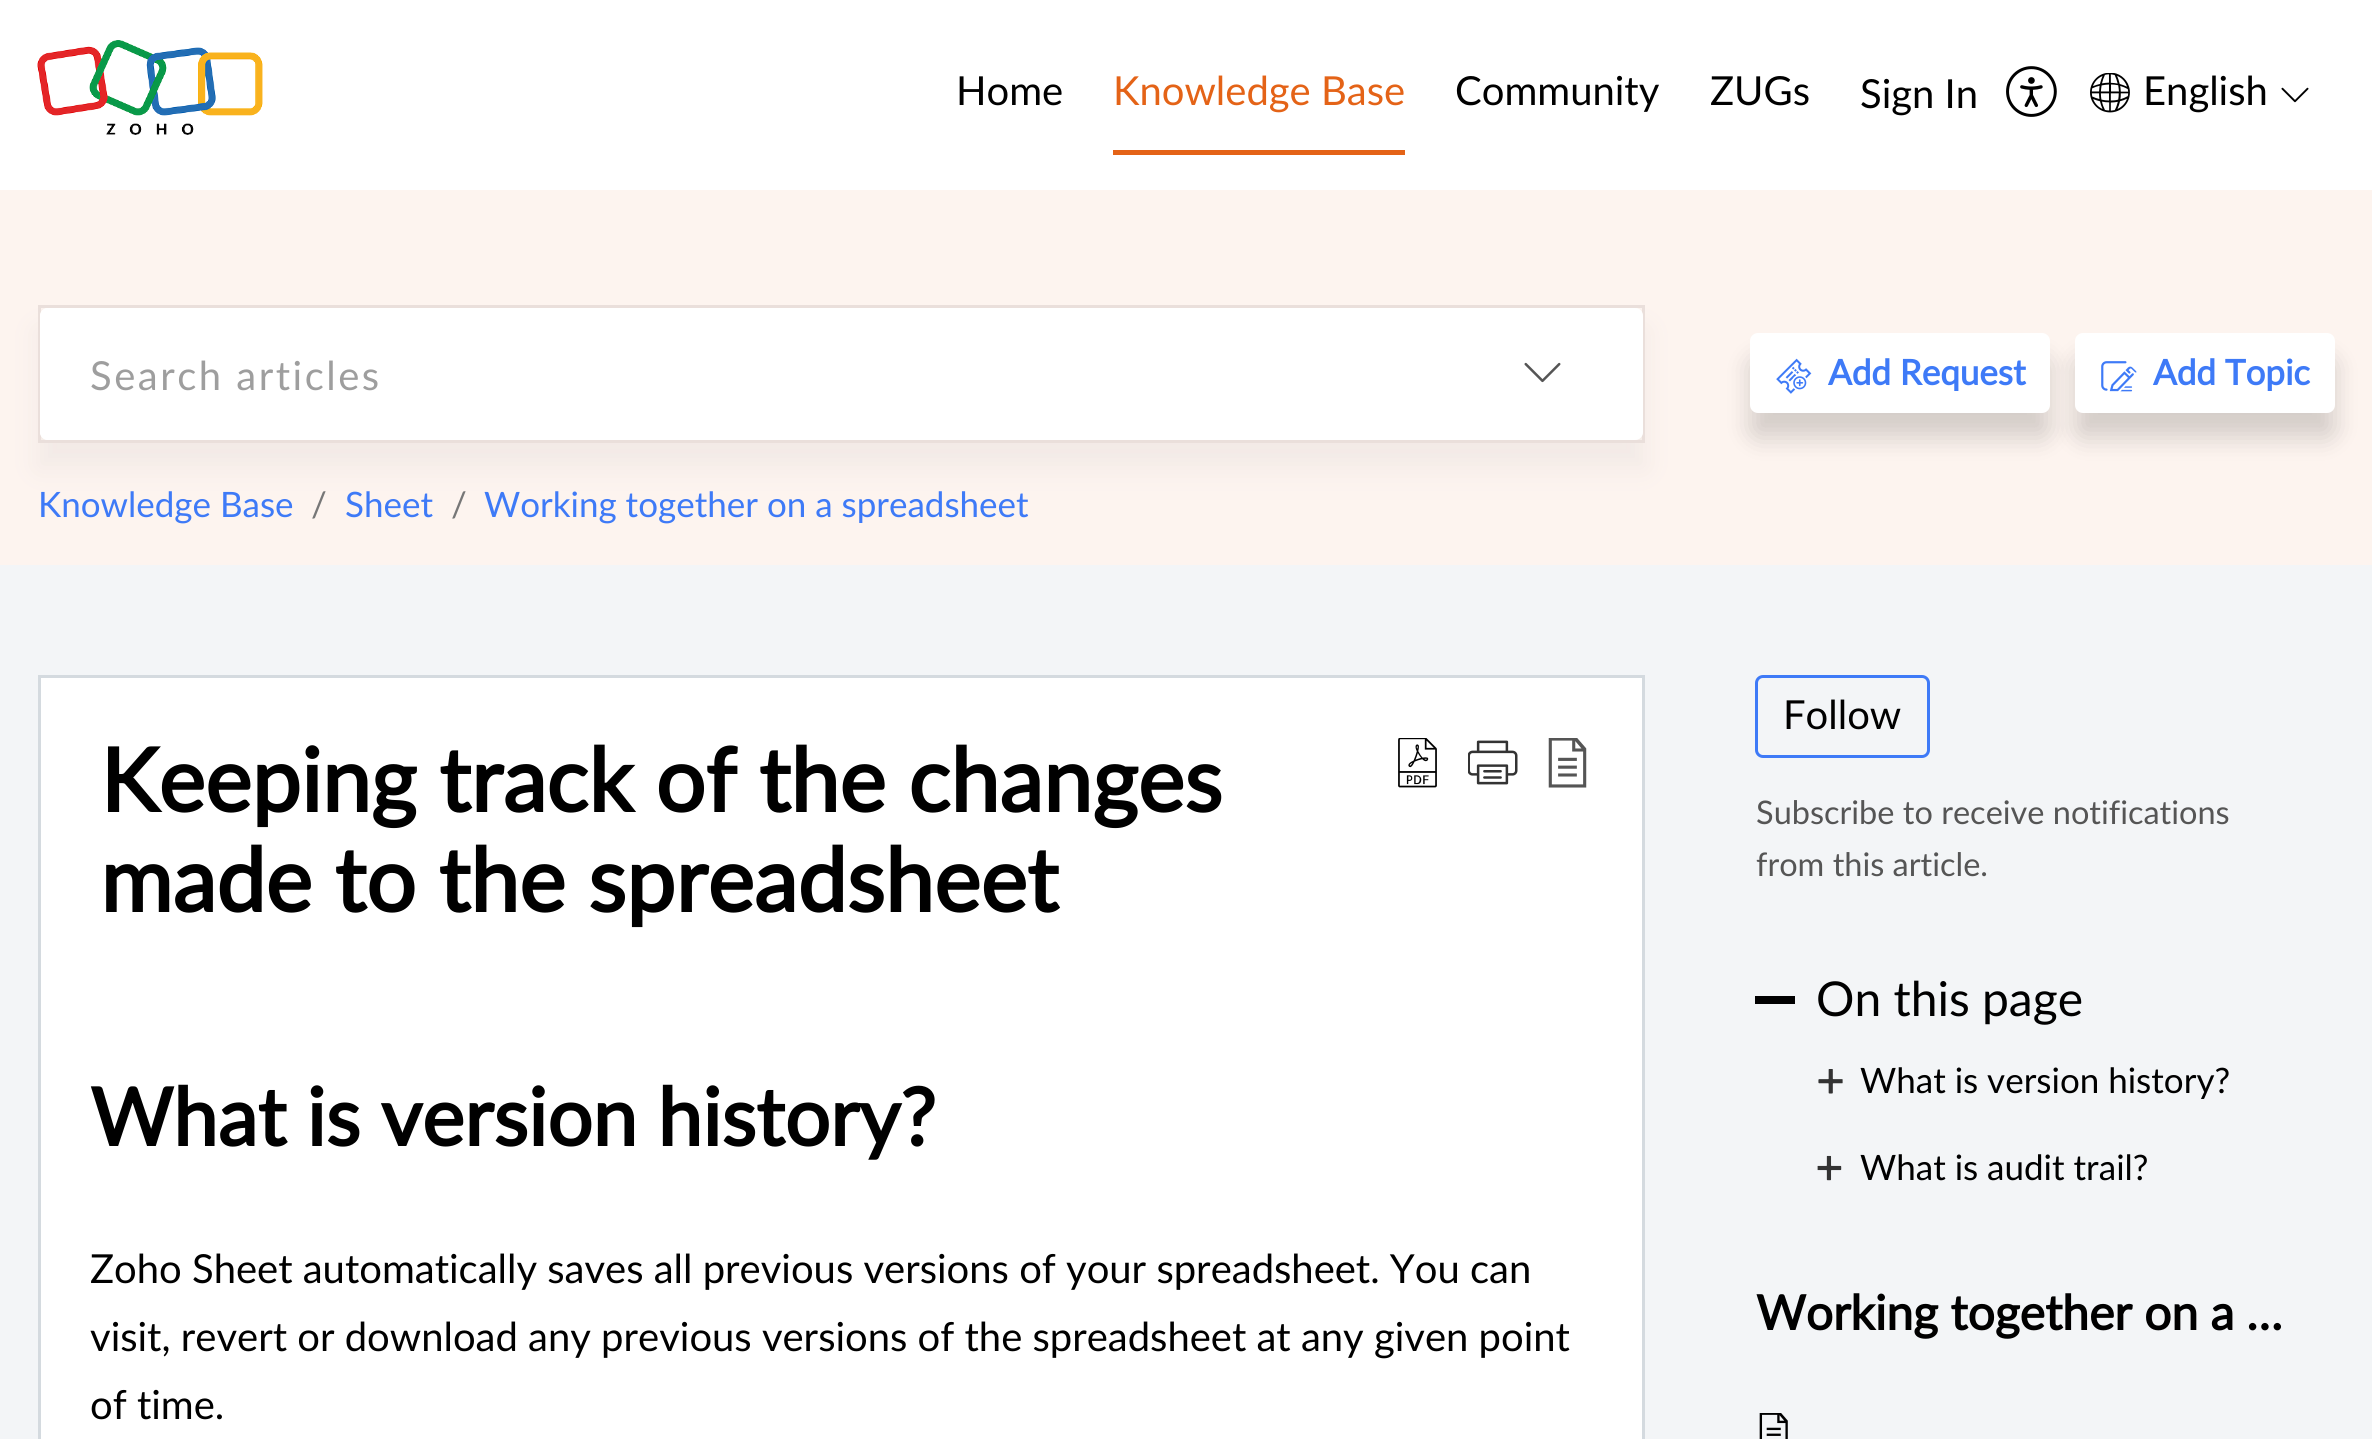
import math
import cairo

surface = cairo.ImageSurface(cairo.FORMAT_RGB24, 2372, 1439)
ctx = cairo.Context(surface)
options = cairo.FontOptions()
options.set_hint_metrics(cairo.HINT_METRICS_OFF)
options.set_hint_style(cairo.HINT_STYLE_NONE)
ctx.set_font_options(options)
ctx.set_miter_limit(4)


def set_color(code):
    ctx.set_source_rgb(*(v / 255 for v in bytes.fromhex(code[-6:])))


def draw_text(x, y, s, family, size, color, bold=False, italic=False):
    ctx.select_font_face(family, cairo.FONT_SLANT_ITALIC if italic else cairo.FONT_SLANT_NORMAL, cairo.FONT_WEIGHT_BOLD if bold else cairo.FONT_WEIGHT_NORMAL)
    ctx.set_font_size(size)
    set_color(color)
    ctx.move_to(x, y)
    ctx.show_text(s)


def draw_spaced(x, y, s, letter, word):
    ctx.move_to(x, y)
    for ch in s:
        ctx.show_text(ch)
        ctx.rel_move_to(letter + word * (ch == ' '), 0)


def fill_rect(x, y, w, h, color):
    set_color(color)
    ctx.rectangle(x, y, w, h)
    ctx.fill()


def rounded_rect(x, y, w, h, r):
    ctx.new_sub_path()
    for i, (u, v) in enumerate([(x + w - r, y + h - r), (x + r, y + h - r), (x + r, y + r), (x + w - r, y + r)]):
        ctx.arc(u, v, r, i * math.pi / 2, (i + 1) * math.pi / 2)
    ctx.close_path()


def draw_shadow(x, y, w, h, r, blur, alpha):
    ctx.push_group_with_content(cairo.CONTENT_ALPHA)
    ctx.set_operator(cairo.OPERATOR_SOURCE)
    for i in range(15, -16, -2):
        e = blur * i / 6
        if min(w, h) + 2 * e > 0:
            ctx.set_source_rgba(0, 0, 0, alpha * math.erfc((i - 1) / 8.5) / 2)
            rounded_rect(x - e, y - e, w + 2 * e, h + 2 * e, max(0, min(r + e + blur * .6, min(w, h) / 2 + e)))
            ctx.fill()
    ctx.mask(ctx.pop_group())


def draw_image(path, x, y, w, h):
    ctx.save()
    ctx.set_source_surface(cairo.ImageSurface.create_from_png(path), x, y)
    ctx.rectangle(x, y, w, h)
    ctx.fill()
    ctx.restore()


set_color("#f3f5f7")
ctx.paint()
fill_rect(0, 0, 2372, 190, "#ffffff")
draw_image("assets/img1.png", 37, 40, 226, 95)
draw_text(956, 105, "Home", "Lato", 40, "#000000")
fill_rect(1113, 150, 292, 5, "#e46317")
draw_text(1113, 105, "Knowledge Base", "Lato", 40, "#e46317")
draw_text(1455, 105, "Community", "Lato", 40, "#000000")
draw_text(1710, 105, "ZUGs", "Lato", 40, "#000000")
draw_text(1860, 108, "Sign In", "Lato", 40, "#000000")
draw_image("assets/img2.png", 2006, 66, 51, 51)
draw_image("assets/img3.png", 2090, 73, 40, 40)
draw_text(2143, 105, "English", "Lato", 40, "#000000")
draw_image("assets/img4.png", 2281, 87, 28, 16)
fill_rect(0, 190, 2372, 375, "#fdf4ef")
set_color("#f0e8e5")
draw_shadow(38, 330, 1607, 138, 0, 12.5, 0.84)
ctx.rectangle(39.5, 306.5, 1604, 135)
set_color("#eadfdb")
ctx.set_line_width(3)
ctx.stroke()
set_color("#ffffff")
rounded_rect(40, 308, 1603, 132, 8)
ctx.fill()
rounded_rect(40, 308, 1403, 132, 8)
ctx.fill()
set_color("#9e9e9e")
draw_spaced(90, 390, "Search articles", 2.5, 0)
ctx.set_source_rgba(1, 1, 1, 0.5)
ctx.new_path()
ctx.move_to(1443, 308)
ctx.line_to(1635, 308)
ctx.curve_to(1639.5, 308, 1643, 311.5, 1643, 316)
ctx.line_to(1643, 432)
ctx.curve_to(1643, 436.5, 1639.5, 440, 1635, 440)
ctx.line_to(1443, 440)
ctx.close_path()
ctx.fill()
draw_image("assets/img5.png", 1524, 362, 37, 21)
set_color("#000000")
draw_shadow(1750, 358, 300, 80, 8, 12.5, 0.16)
set_color("#ffffff")
rounded_rect(1750, 333, 300, 80, 8)
ctx.fill()
draw_image("assets/img6.png", 1776, 358, 36, 36)
draw_text(1828, 385, "Add Request", "Lato", 35, "#3e7af7", bold=True)
set_color("#000000")
draw_shadow(2075, 358, 260, 80, 8, 12.5, 0.16)
set_color("#ffffff")
rounded_rect(2075, 333, 260, 80, 8)
ctx.fill()
draw_image("assets/img7.png", 2101, 361, 36, 31)
draw_text(2153, 385, "Add Topic", "Lato", 35, "#3e7af7", bold=True)
draw_text(38, 517, "Knowledge Base", "Lato", 35, "#3e7af7")
draw_text(311, 517, "/", "Lato", 35, "#777777")
draw_text(345, 517, "Sheet", "Lato", 35, "#3e7af7")
draw_text(451, 517, "/", "Lato", 35, "#777777")
draw_text(484, 517, "Working together on a spreadsheet", "Lato", 35, "#3e7af7")
set_color("#ffffff")
ctx.rectangle(39.5, 676.5, 1604, 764)
ctx.fill_preserve()
set_color("#d4dadf")
ctx.stroke()
draw_text(100, 812, "Keeping track of the changes", "Lato", 88, "#000000", bold=True)
draw_text(100, 912, "made to the spreadsheet", "Lato", 88, "#000000", bold=True)
draw_image("assets/img8.png", 1398, 738, 39, 50)
draw_image("assets/img9.png", 1468, 740, 50, 45)
draw_image("assets/img10.png", 1548, 738, 39, 50)
draw_text(90, 1146, "What is version history?", "Lato", 80, "#000000", bold=True)
draw_text(90, 1283, "Zoho Sheet automatically saves all previous versions of your spreadsheet. You can", "Lato", 40, "#000000")
draw_text(90, 1351, "visit, revert or download any previous versions of the spreadsheet at any given point", "Lato", 40, "#000000")
draw_text(90, 1419, "of time.", "Lato", 40, "#000000")
rounded_rect(1756.5, 676.5, 172, 80, 6.5)
set_color("#3e7af7")
ctx.stroke()
draw_text(1783, 729, "Follow", "Lato", 40, "#000000")
draw_text(1756, 824, "Subscribe to receive notifications", "Lato", 32.5, "#555555")
draw_text(1756, 876, "from this article.", "Lato", 32.5, "#555555")
fill_rect(1755, 996, 40, 8, "#000000")
draw_text(1816, 1016, "On this page", "Lato", 48, "#000000")
draw_image("assets/img11.png", 1818, 1069, 25, 25)
draw_text(1860, 1093, "What is version history?", "Lato", 35, "#000000")
draw_image("assets/img12.png", 1817, 1155, 25, 26)
draw_text(1860, 1180, "What is audit trail?", "Lato", 35, "#000000")
draw_text(1756, 1330, "Working together on a …", "Lato", 48, "#000000", bold=True)
draw_image("assets/img13.png", 1759, 1413, 29, 26)
surface.write_to_png("output.png")
